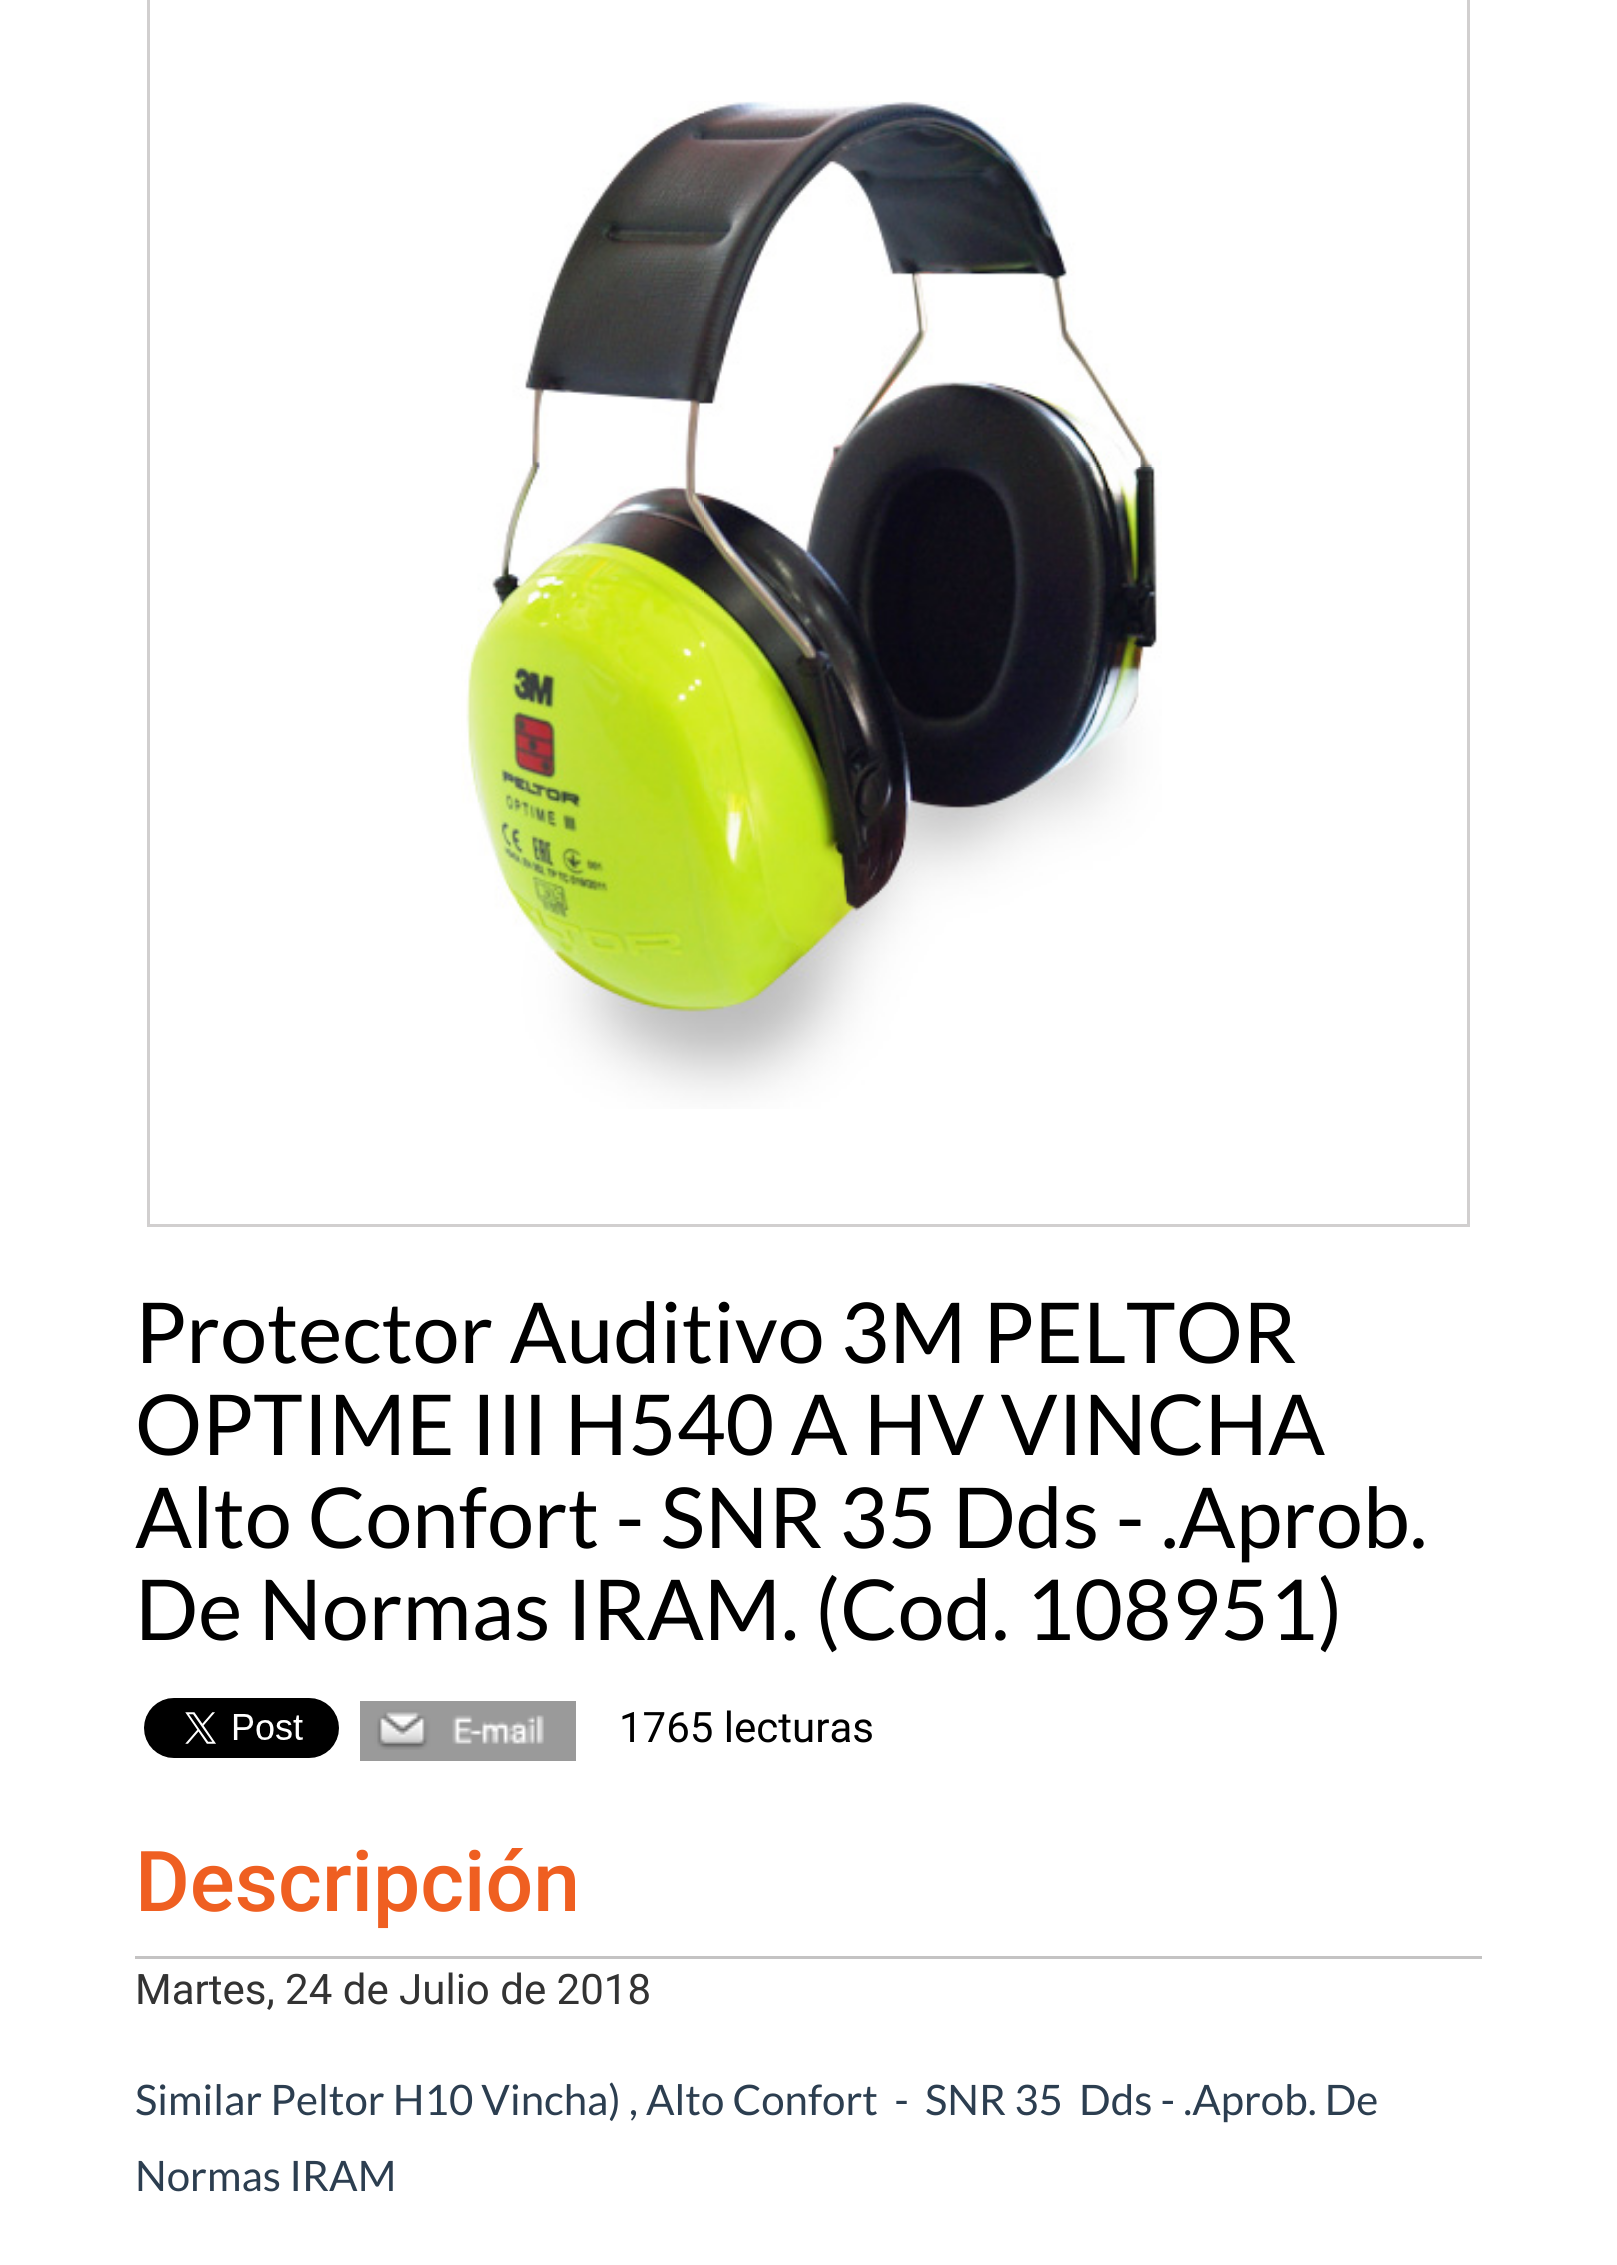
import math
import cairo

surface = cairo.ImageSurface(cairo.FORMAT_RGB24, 1617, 2265)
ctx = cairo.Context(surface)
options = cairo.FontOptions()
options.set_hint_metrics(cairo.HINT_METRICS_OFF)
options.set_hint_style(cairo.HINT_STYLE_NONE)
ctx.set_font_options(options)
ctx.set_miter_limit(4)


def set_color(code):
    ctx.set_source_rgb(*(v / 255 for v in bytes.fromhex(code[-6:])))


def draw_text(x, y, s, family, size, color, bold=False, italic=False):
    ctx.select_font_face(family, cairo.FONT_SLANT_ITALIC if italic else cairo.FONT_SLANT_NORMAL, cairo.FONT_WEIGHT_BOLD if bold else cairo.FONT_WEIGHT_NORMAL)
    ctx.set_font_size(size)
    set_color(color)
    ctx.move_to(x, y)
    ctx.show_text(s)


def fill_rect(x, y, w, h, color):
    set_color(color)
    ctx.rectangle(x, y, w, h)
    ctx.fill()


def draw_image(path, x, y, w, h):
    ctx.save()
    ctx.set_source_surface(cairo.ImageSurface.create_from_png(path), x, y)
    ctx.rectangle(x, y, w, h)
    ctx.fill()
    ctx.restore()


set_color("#ffffff")
ctx.paint()
ctx.rectangle(148.5, -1.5, 1320, 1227)
set_color("#d1cfcf")
ctx.set_line_width(3)
ctx.stroke()
draw_image("assets/img1.png", 461, 101, 701, 1008)
draw_text(135, 1363, "Protector Auditivo 3M PELTOR", "Lato", 84, "#000000")
draw_text(135, 1455, "OPTIME III H540 A HV VINCHA", "Lato", 84, "#000000")
draw_text(135, 1548, "Alto Confort - SNR 35 Dds - .Aprob.", "Lato", 84, "#000000")
draw_text(135, 1640, "De Normas IRAM. (Cod. 108951)", "Lato", 84, "#000000")
draw_image("assets/img2.png", 144, 1698, 195, 60)
draw_image("assets/img3.png", 360, 1701, 216, 60)
draw_text(619, 1742, "1765 lecturas", "Roboto", 42, "#000000")
fill_rect(135, 1956, 1347, 3, "#c4c3c3")
draw_text(135, 1911, "Descripción", "Roboto Medium", 84, "#ef5f21")
draw_text(135, 2004, "Martes, 24 de Julio de 2018", "Roboto", 42, "#333333")
draw_text(135, 2115, "Similar Peltor H10 Vincha) , Alto Confort  -  SNR 35  Dds - .Aprob. De", "Lato", 42, "#2c3e50")
draw_text(135, 2191, "Normas IRAM", "Lato", 42, "#2c3e50")
surface.write_to_png("output.png")
